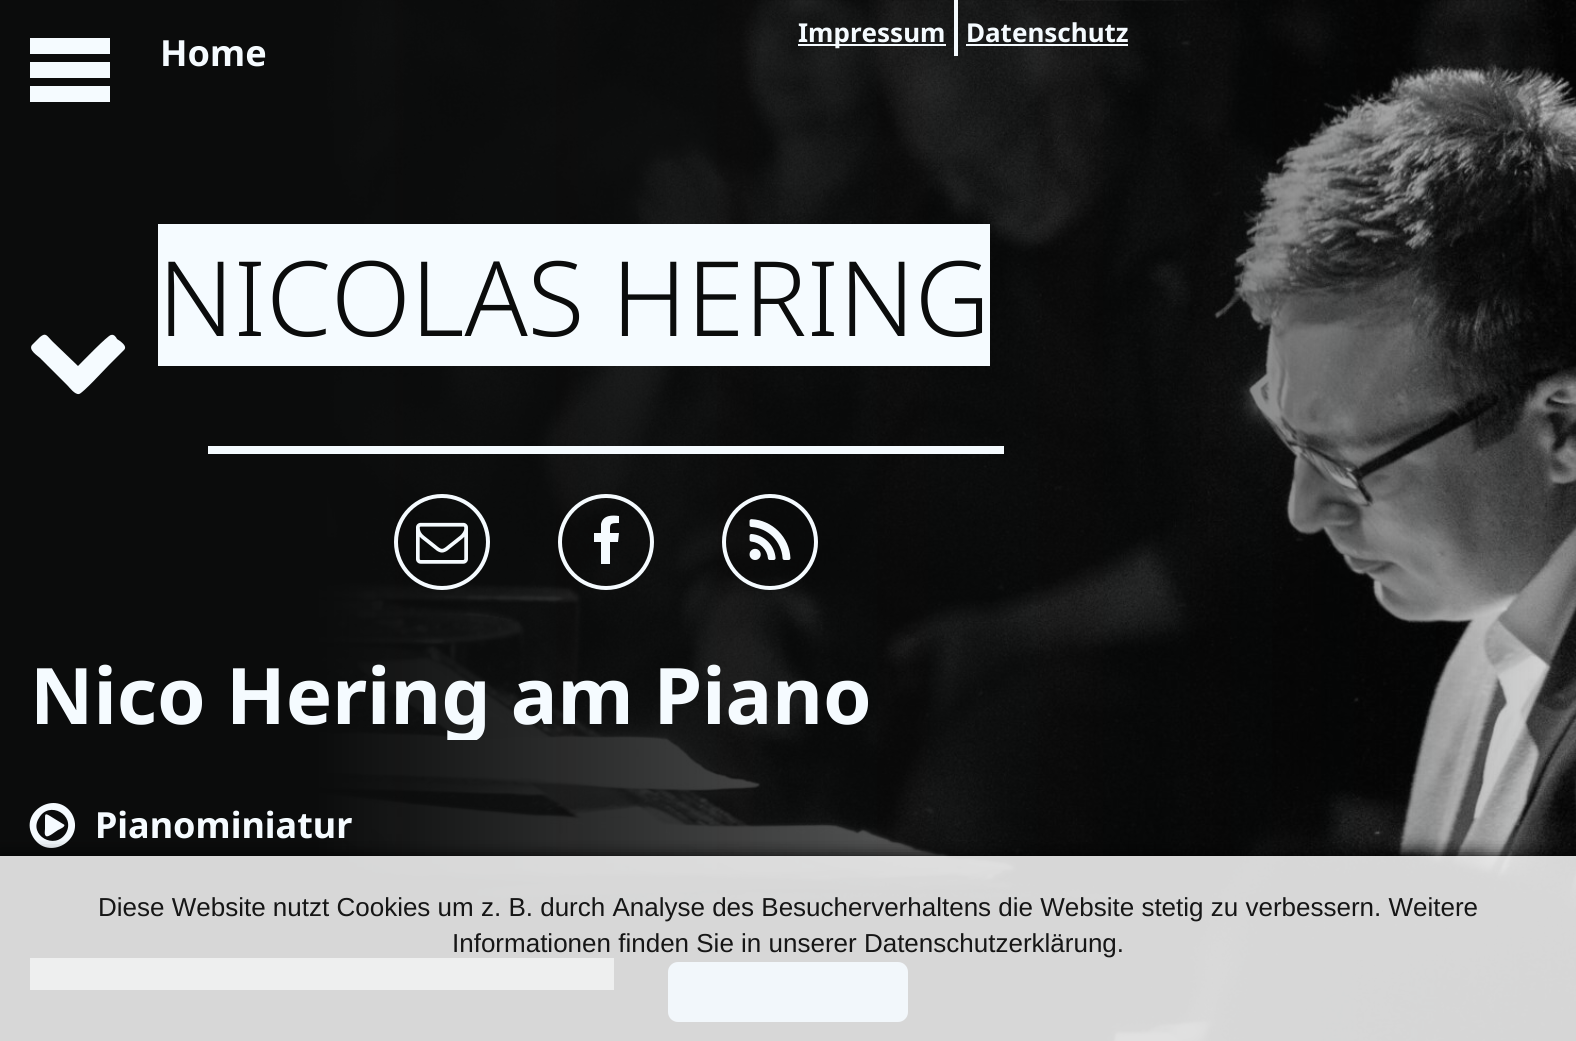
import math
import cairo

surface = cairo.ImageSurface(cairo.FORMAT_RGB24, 1576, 1041)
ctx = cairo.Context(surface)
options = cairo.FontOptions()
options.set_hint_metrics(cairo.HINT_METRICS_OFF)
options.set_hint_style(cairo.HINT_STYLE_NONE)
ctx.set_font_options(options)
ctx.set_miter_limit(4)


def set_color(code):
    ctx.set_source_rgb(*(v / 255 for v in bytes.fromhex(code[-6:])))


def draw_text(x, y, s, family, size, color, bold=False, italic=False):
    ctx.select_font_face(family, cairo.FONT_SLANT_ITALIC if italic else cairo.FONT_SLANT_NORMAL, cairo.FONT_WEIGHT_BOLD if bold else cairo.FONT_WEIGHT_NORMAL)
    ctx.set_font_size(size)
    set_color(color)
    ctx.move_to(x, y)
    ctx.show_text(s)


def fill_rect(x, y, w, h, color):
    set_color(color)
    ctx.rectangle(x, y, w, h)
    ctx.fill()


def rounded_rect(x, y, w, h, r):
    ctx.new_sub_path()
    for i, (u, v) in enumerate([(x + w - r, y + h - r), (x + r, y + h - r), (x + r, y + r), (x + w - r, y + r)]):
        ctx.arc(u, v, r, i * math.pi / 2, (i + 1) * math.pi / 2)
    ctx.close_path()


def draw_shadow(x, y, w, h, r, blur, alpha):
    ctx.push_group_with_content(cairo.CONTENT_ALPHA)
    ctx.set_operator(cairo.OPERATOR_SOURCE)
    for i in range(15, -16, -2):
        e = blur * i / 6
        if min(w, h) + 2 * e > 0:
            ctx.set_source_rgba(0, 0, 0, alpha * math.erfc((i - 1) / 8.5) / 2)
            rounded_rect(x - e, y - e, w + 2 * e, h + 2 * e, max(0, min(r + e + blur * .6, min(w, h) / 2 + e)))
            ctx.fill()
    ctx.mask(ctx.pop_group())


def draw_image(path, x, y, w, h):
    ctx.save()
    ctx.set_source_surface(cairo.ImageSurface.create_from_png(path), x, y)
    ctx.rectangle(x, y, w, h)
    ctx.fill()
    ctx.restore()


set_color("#ffffff")
ctx.paint()
draw_image("assets/img1.png", 0, 0, 1576, 1041)
fill_rect(30, 62, 80, 16, "#f5fbff")
fill_rect(30, 38, 80, 16, "#f5fbff")
fill_rect(30, 86, 80, 16, "#f5fbff")
fill_rect(798, 44, 148, 2, "#f5fbff")
draw_text(798, 42, "Impressum", "Noto Sans", 26, "#f5fbff", bold=True)
fill_rect(954, 0, 4, 56, "#f5fbff")
draw_text(966, 42, "Datenschutz", "Noto Sans", 26, "#f5fbff", bold=True)
fill_rect(966, 44, 162, 2, "#f5fbff")
draw_text(160, 66, "Home", "Noto Sans", 36, "#f5fbff", bold=True)
fill_rect(158, 224, 832, 142, "#f5fbff")
draw_text(158, 336, "NICOLAS HERING", "Noto Sans Light", 104, "#0b0c0c")
fill_rect(208, 446, 796, 8, "#f5fbff")
ctx.new_path()
ctx.arc(442, 542, 46, 0, 2 * math.pi)
ctx.set_line_width(4)
ctx.stroke()
draw_image("assets/img2.png", 416, 522, 52, 42)
ctx.set_source_rgba(0.043, 0.047, 0.047, 0.3)
ctx.arc(606, 542, 46, 0, 2 * math.pi)
ctx.fill_preserve()
set_color("#f5fbff")
ctx.stroke()
ctx.new_path()
ctx.move_to(619, 516)
ctx.line_to(619, 523)
ctx.curve_to(609, 523, 610, 524, 610, 533)
ctx.line_to(619, 533)
ctx.line_to(618, 542)
ctx.line_to(610, 542)
ctx.line_to(610, 564)
ctx.line_to(601, 564)
ctx.line_to(601, 542)
ctx.line_to(594, 542)
ctx.line_to(594, 533)
ctx.line_to(601, 533)
ctx.line_to(601, 524)
ctx.curve_to(603, 515, 612, 515, 619, 516)
ctx.close_path()
ctx.fill()
ctx.set_source_rgba(0.043, 0.047, 0.047, 0.3)
ctx.arc(770, 542, 46, 0, 2 * math.pi)
ctx.fill_preserve()
set_color("#f5fbff")
ctx.stroke()
draw_image("assets/img3.png", 749, 519, 42, 41)
ctx.new_path()
ctx.move_to(32, 345)
ctx.line_to(40, 337)
ctx.curve_to(46, 332, 47, 336, 52, 341)
ctx.line_to(78, 366)
ctx.curve_to(82, 362, 108, 335, 111, 335)
ctx.curve_to(114, 334, 116, 337, 117, 339)
ctx.curve_to(120, 341, 128, 346, 124, 350)
ctx.line_to(109, 365)
ctx.curve_to(105, 369, 82, 394, 79, 394)
ctx.curve_to(75, 395, 69, 387, 68, 386)
ctx.line_to(40, 358)
ctx.curve_to(38, 356, 28, 350, 32, 345)
ctx.close_path()
ctx.fill()
ctx.save()
ctx.rectangle(30, 650, 1476, 90)
ctx.clip()
draw_text(30, 724, "Nico Hering am Piano", "Noto Sans", 78, "#f5fbff", bold=True)
ctx.restore()
ctx.new_path()
ctx.move_to(63, 824)
ctx.curve_to(68, 826, 58, 830, 58, 830)
ctx.curve_to(56, 831, 48, 838, 46, 836)
ctx.curve_to(44, 835, 45, 830, 45, 829)
ctx.line_to(45, 819)
ctx.curve_to(45, 814, 45, 813, 50, 816)
ctx.close_path()
ctx.move_to(66, 833)
ctx.curve_to(76, 815, 49, 800, 39, 818)
ctx.curve_to(28, 835, 55, 851, 66, 833)
ctx.close_path()
ctx.move_to(72, 814)
ctx.curve_to(86, 840, 48, 862, 33, 837)
ctx.curve_to(18, 811, 57, 789, 72, 814)
ctx.close_path()
ctx.fill()
draw_text(95, 838, "Pianominiatur", "Noto Sans", 36, "#f5fbff", bold=True)
fill_rect(30, 958, 584, 32, "#f5fbff")
ctx.save()
ctx.rectangle(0, 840, 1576, 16)
ctx.clip()
set_color("#000000")
draw_shadow(0, 856, 1576, 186, 0, 8, 0.9)
ctx.restore()
ctx.set_source_rgba(0.933, 0.933, 0.933, 0.9)
ctx.rectangle(0, 856, 1576, 185)
ctx.fill()
draw_text(98, 916, "Diese Website nutzt Cookies um z. B. durch Analyse des Besucherverhaltens die Website stetig zu verbessern. Weitere", "Liberation Sans", 26, "#161616")
draw_text(452, 952, "Informationen finden Sie in unserer Datenschutzerklärung.", "Liberation Sans", 26, "#161616")
set_color("#f2f7fb")
rounded_rect(668, 962, 240, 60, 10)
ctx.fill()
surface.write_to_png("output.png")
